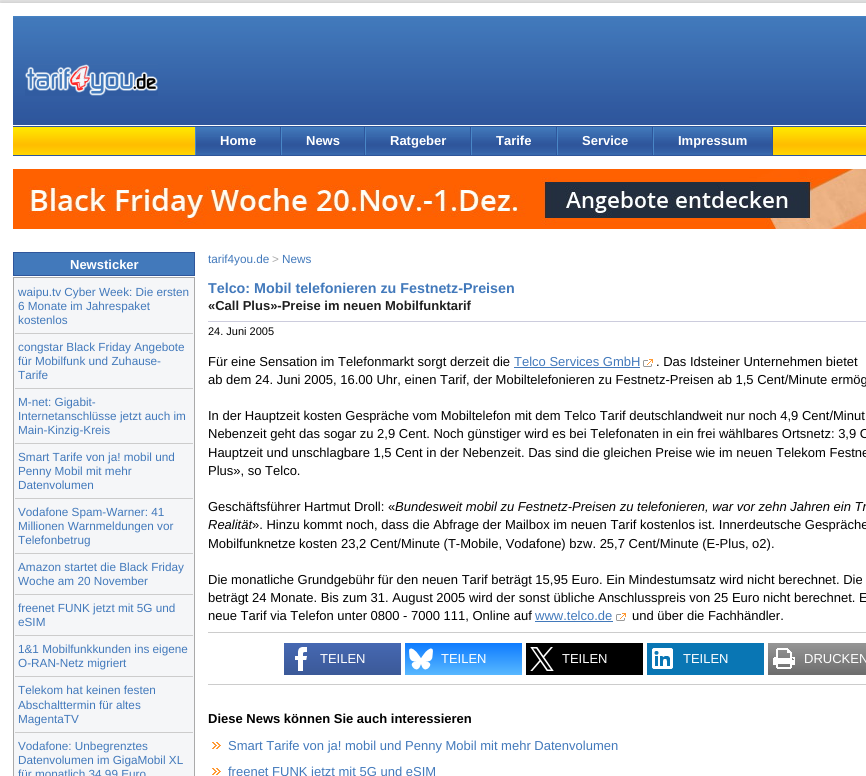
import math
import cairo

surface = cairo.ImageSurface(cairo.FORMAT_RGB24, 866, 776)
ctx = cairo.Context(surface)
options = cairo.FontOptions()
options.set_hint_metrics(cairo.HINT_METRICS_OFF)
options.set_hint_style(cairo.HINT_STYLE_NONE)
ctx.set_font_options(options)
ctx.set_miter_limit(4)


def set_color(code):
    ctx.set_source_rgb(*(v / 255 for v in bytes.fromhex(code[-6:])))


def draw_text(x, y, s, family, size, color, bold=False, italic=False):
    ctx.select_font_face(family, cairo.FONT_SLANT_ITALIC if italic else cairo.FONT_SLANT_NORMAL, cairo.FONT_WEIGHT_BOLD if bold else cairo.FONT_WEIGHT_NORMAL)
    ctx.set_font_size(size)
    set_color(color)
    ctx.move_to(x, y)
    ctx.show_text(s)


def fill_rect(x, y, w, h, color):
    set_color(color)
    ctx.rectangle(x, y, w, h)
    ctx.fill()


def rounded_rect(x, y, w, h, r):
    ctx.new_sub_path()
    for i, (u, v) in enumerate([(x + w - r, y + h - r), (x + r, y + h - r), (x + r, y + r), (x + w - r, y + r)]):
        ctx.arc(u, v, r, i * math.pi / 2, (i + 1) * math.pi / 2)
    ctx.close_path()


def draw_shadow(x, y, w, h, r, blur, alpha):
    ctx.push_group_with_content(cairo.CONTENT_ALPHA)
    ctx.set_operator(cairo.OPERATOR_SOURCE)
    for i in range(15, -16, -2):
        e = blur * i / 6
        if min(w, h) + 2 * e > 0:
            ctx.set_source_rgba(0, 0, 0, alpha * math.erfc((i - 1) / 8.5) / 2)
            rounded_rect(x - e, y - e, w + 2 * e, h + 2 * e, max(0, min(r + e + blur * .6, min(w, h) / 2 + e)))
            ctx.fill()
    ctx.mask(ctx.pop_group())


def draw_image(path, x, y, w, h):
    ctx.save()
    ctx.set_source_surface(cairo.ImageSurface.create_from_png(path), x, y)
    ctx.rectangle(x, y, w, h)
    ctx.fill()
    ctx.restore()


set_color("#f0f0f0")
ctx.paint()
set_color("#7d7d7d")
draw_shadow(0, 3, 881, 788, 0, 5, 0.5)
fill_rect(0, 3, 866, 773, "#ffffff")
draw_image("assets/img1.png", 13, 16, 853, 109)
draw_image("assets/img2.png", 25, 64, 133, 32)
draw_image("assets/img3.png", 13, 127, 853, 28)
fill_rect(13, 126, 853, 1, "#2f569b")
fill_rect(13, 155, 853, 1, "#2f569b")
draw_image("assets/img4.png", 196, 127, 84, 28)
fill_rect(280, 127, 1, 28, "#2f569b")
fill_rect(195, 127, 1, 28, "#4987c7")
draw_text(220, 145, "Home", "Liberation Sans", 13, "#ffffff", bold=True)
draw_image("assets/img5.png", 282, 127, 82, 28)
fill_rect(364, 127, 1, 28, "#2f569b")
fill_rect(281, 127, 1, 28, "#4987c7")
draw_text(306, 145, "News", "Liberation Sans", 13, "#ffffff", bold=True)
draw_image("assets/img6.png", 366, 127, 104, 28)
fill_rect(470, 127, 1, 28, "#2f569b")
fill_rect(365, 127, 1, 28, "#4987c7")
draw_text(390, 145, "Ratgeber", "Liberation Sans", 13, "#ffffff", bold=True)
draw_image("assets/img4.png", 472, 127, 84, 28)
fill_rect(556, 127, 1, 28, "#2f569b")
fill_rect(471, 127, 1, 28, "#4987c7")
draw_text(496, 145, "Tarife", "Liberation Sans", 13, "#ffffff", bold=True)
draw_image("assets/img7.png", 558, 127, 94, 28)
fill_rect(652, 127, 1, 28, "#2f569b")
fill_rect(557, 127, 1, 28, "#4987c7")
draw_text(582, 145, "Service", "Liberation Sans", 13, "#ffffff", bold=True)
draw_image("assets/img8.png", 654, 127, 118, 28)
fill_rect(772, 127, 1, 28, "#2f569b")
fill_rect(653, 127, 1, 28, "#4987c7")
draw_text(678, 145, "Impressum", "Liberation Sans", 13, "#ffffff", bold=True)
draw_image("assets/img9.png", 13, 169, 853, 60)
set_color("#4279bb")
ctx.rectangle(13.5, 252.5, 181, 23)
ctx.fill_preserve()
set_color("#2f569b")
ctx.set_line_width(1)
ctx.stroke()
draw_text(70, 269, "Newsticker", "Liberation Sans", 13, "#ffffff", bold=True)
set_color("#f5f6f8")
ctx.rectangle(13.5, 277.5, 181, 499)
ctx.fill_preserve()
set_color("#aaaaaa")
ctx.stroke()
fill_rect(15, 333, 178, 1, "#cccccc")
draw_text(18, 296, "waipu.tv Cyber Week: Die ersten", "Liberation Sans", 11.75, "#4279bb")
draw_text(18, 310, "6 Monate im Jahrespaket", "Liberation Sans", 11.75, "#4279bb")
draw_text(18, 324, "kostenlos", "Liberation Sans", 11.75, "#4279bb")
fill_rect(15, 388, 178, 1, "#cccccc")
draw_text(18, 351, "congstar Black Friday Angebote", "Liberation Sans", 11.75, "#4279bb")
draw_text(18, 365, "für Mobilfunk und Zuhause-", "Liberation Sans", 11.75, "#4279bb")
draw_text(18, 379, "Tarife", "Liberation Sans", 11.75, "#4279bb")
fill_rect(15, 443, 178, 1, "#cccccc")
draw_text(18, 406, "M-net: Gigabit-", "Liberation Sans", 11.75, "#4279bb")
draw_text(18, 420, "Internetanschlüsse jetzt auch im", "Liberation Sans", 11.75, "#4279bb")
draw_text(18, 434, "Main-Kinzig-Kreis", "Liberation Sans", 11.75, "#4279bb")
fill_rect(15, 498, 178, 1, "#cccccc")
draw_text(18, 461, "Smart Tarife von ja! mobil und", "Liberation Sans", 11.75, "#4279bb")
draw_text(18, 475, "Penny Mobil mit mehr", "Liberation Sans", 11.75, "#4279bb")
draw_text(18, 489, "Datenvolumen", "Liberation Sans", 11.75, "#4279bb")
fill_rect(15, 553, 178, 1, "#cccccc")
draw_text(18, 516, "Vodafone Spam-Warner: 41", "Liberation Sans", 11.75, "#4279bb")
draw_text(18, 530, "Millionen Warnmeldungen vor", "Liberation Sans", 11.75, "#4279bb")
draw_text(18, 544, "Telefonbetrug", "Liberation Sans", 11.75, "#4279bb")
fill_rect(15, 594, 178, 1, "#cccccc")
draw_text(18, 571, "Amazon startet die Black Friday", "Liberation Sans", 11.75, "#4279bb")
draw_text(18, 585, "Woche am 20 November", "Liberation Sans", 11.75, "#4279bb")
fill_rect(15, 635, 178, 1, "#cccccc")
draw_text(18, 612, "freenet FUNK jetzt mit 5G und", "Liberation Sans", 11.75, "#4279bb")
draw_text(18, 626, "eSIM", "Liberation Sans", 11.75, "#4279bb")
fill_rect(15, 676, 178, 1, "#cccccc")
draw_text(18, 653, "1&1 Mobilfunkkunden ins eigene", "Liberation Sans", 11.75, "#4279bb")
draw_text(18, 667, "O-RAN-Netz migriert", "Liberation Sans", 11.75, "#4279bb")
fill_rect(15, 732, 178, 1, "#cccccc")
draw_text(18, 694, "Telekom hat keinen festen", "Liberation Sans", 11.75, "#4279bb")
draw_text(18, 709, "Abschalttermin für altes", "Liberation Sans", 11.75, "#4279bb")
draw_text(18, 723, "MagentaTV", "Liberation Sans", 11.75, "#4279bb")
draw_text(18, 750, "Vodafone: Unbegrenztes", "Liberation Sans", 11.75, "#4279bb")
draw_text(18, 764, "Datenvolumen im GigaMobil XL", "Liberation Sans", 11.75, "#4279bb")
draw_text(18, 778, "für monatlich 34,99 Euro", "Liberation Sans", 11.75, "#4279bb")
draw_text(208, 263, "tarif4you.de", "Liberation Sans", 11.75, "#4279bb")
draw_text(272, 263, ">", "Liberation Sans", 11.75, "#aaaaaa")
draw_text(282, 263, "News", "Liberation Sans", 11.75, "#4279bb")
draw_text(208, 293, "Telco: Mobil telefonieren zu Festnetz-Preisen", "Liberation Sans", 14.3, "#4279bb", bold=True)
draw_text(208, 310, "«Call Plus»-Preise im neuen Mobilfunktarif", "Liberation Sans", 13, "#202020", bold=True)
fill_rect(208, 321, 658, 1, "#ccccdd")
draw_text(208, 335, "24. Juni 2005", "Liberation Sans", 11, "#000000")
draw_text(208, 366, "Für eine Sensation im Telefonmarkt sorgt derzeit die", "Liberation Sans", 13, "#000000")
draw_text(514, 366, "Telco Services GmbH", "Liberation Sans", 13, "#4279bb")
fill_rect(514, 367, 126, 1, "#4279bb")
draw_image("assets/img10.png", 643, 359, 10, 8)
draw_text(656, 366, ". Das Idsteiner Unternehmen bietet", "Liberation Sans", 13, "#000000")
draw_text(208, 384, "ab dem 24. Juni 2005, 16.00 Uhr, einen Tarif, der Mobiltelefonieren zu Festnetz-Preisen ab 1,5 Cent/Minute ermög", "Liberation Sans", 13, "#000000")
draw_text(208, 420, "In der Hauptzeit kosten Gespräche vom Mobiltelefon mit dem Telco Tarif deutschlandweit nur noch 4,9 Cent/Minut", "Liberation Sans", 13, "#000000")
draw_text(208, 438, "Nebenzeit geht das sogar zu 2,9 Cent. Noch günstiger wird es bei Telefonaten in ein frei wählbares Ortsnetz: 3,9 C", "Liberation Sans", 13, "#000000")
draw_text(208, 457, "Hauptzeit und unschlagbare 1,5 Cent in der Nebenzeit. Das sind die gleichen Preise wie im neuen Telekom Festne", "Liberation Sans", 13, "#000000")
draw_text(208, 475, "Plus», so Telco.", "Liberation Sans", 13, "#000000")
draw_text(208, 511, "Geschäftsführer Hartmut Droll: «", "Liberation Sans", 13, "#000000")
draw_text(395, 511, "Bundesweit mobil zu Festnetz-Preisen zu telefonieren, war vor zehn Jahren ein Tr", "Liberation Sans", 13, "#000000", italic=True)
draw_text(208, 529, "Realität", "Liberation Sans", 13, "#000000", italic=True)
draw_text(252, 529, "». Hinzu kommt noch, dass die Abfrage der Mailbox im neuen Tarif kostenlos ist. Innerdeutsche Gespräche", "Liberation Sans", 13, "#000000")
draw_text(208, 548, "Mobilfunknetze kosten 23,2 Cent/Minute (T-Mobile, Vodafone) bzw. 25,7 Cent/Minute (E-Plus, o2).", "Liberation Sans", 13, "#000000")
draw_text(208, 584, "Die monatliche Grundgebühr für den neuen Tarif beträgt 15,95 Euro. Ein Mindestumsatz wird nicht berechnet. Die", "Liberation Sans", 13, "#000000")
draw_text(208, 602, "beträgt 24 Monate. Bis zum 31. August 2005 wird der sonst übliche Anschlusspreis von 25 Euro nicht berechnet. E", "Liberation Sans", 13, "#000000")
draw_text(208, 620, "neue Tarif via Telefon unter 0800 - 7000 111, Online auf", "Liberation Sans", 13, "#000000")
draw_text(535, 620, "www.telco.de", "Liberation Sans", 13, "#4279bb")
fill_rect(535, 621, 78, 1, "#4279bb")
draw_image("assets/img10.png", 616, 613, 10, 8)
draw_text(632, 620, "und über die Fachhändler.", "Liberation Sans", 13, "#000000")
fill_rect(208, 632, 658, 1, "#cccccc")
fill_rect(208, 684, 658, 1, "#cccccc")
gradient = cairo.LinearGradient(343, 643, 343, 675)
gradient.add_color_stop_rgba(0, 0.275, 0.408, 0.698, 1)
gradient.add_color_stop_rgba(1, 0.231, 0.349, 0.596, 1)
ctx.set_source(gradient)
ctx.rectangle(284, 643, 117, 32)
ctx.fill()
draw_image("assets/img11.png", 295, 647, 12, 24)
draw_text(320, 663, "TEILEN", "Liberation Sans", 13, "#ffffff")
gradient = cairo.LinearGradient(464, 643, 464, 675)
gradient.add_color_stop_rgba(0, 0.055, 0.482, 1, 1)
gradient.add_color_stop_rgba(1, 0.345, 0.722, 1, 1)
ctx.set_source(gradient)
ctx.rectangle(405, 643, 117, 32)
ctx.fill()
draw_image("assets/img12.png", 409, 648, 24, 22)
draw_text(441, 663, "TEILEN", "Liberation Sans", 13, "#ffffff")
fill_rect(526, 643, 117, 32, "#000000")
draw_image("assets/img13.png", 530, 647, 24, 24)
draw_text(562, 663, "TEILEN", "Liberation Sans", 13, "#ffffff")
fill_rect(647, 643, 117, 32, "#0976b4")
draw_image("assets/img14.png", 652, 648, 21, 21)
draw_text(683, 663, "TEILEN", "Liberation Sans", 13, "#ffffff")
gradient = cairo.LinearGradient(827, 643, 827, 675)
gradient.add_color_stop_rgba(0, 0.588, 0.588, 0.588, 1)
gradient.add_color_stop_rgba(1, 0.424, 0.424, 0.424, 1)
ctx.set_source(gradient)
ctx.rectangle(768, 643, 98, 32)
ctx.fill()
draw_image("assets/img15.png", 773, 648, 22, 21)
draw_text(804, 663, "DRUCKEN", "Liberation Sans", 13, "#ffffff")
draw_text(208, 723, "Diese News können Sie auch interessieren", "Liberation Sans", 13, "#000000", bold=True)
draw_image("assets/img16.png", 212, 742, 9, 7)
draw_text(228, 750, "Smart Tarife von ja! mobil und Penny Mobil mit mehr Datenvolumen", "Liberation Sans", 13, "#4279bb")
draw_image("assets/img16.png", 212, 768, 9, 7)
draw_text(228, 776, "freenet FUNK jetzt mit 5G und eSIM", "Liberation Sans", 13, "#4279bb")
surface.write_to_png("output.png")
